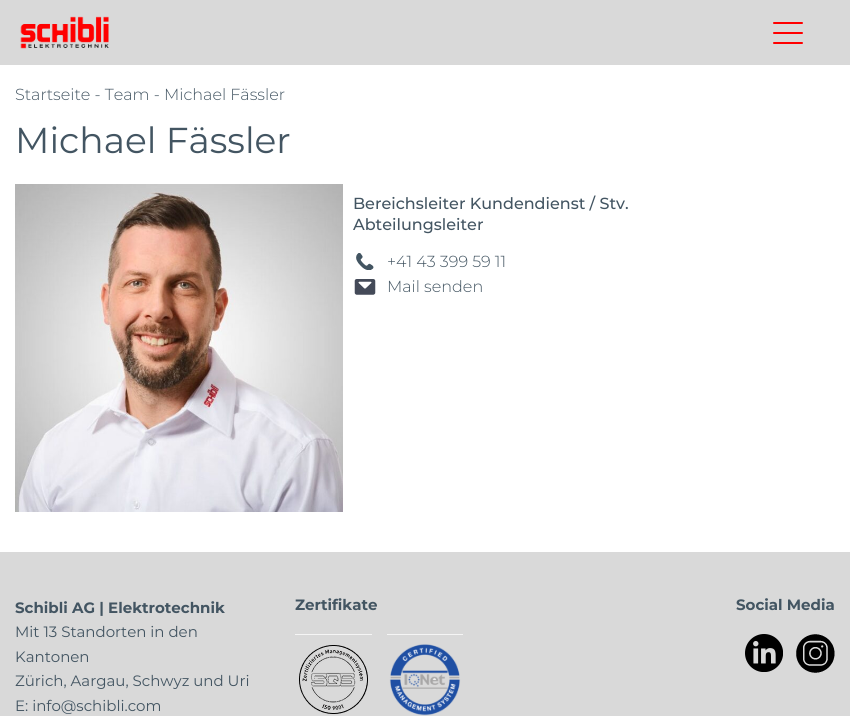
import math
import cairo

surface = cairo.ImageSurface(cairo.FORMAT_RGB24, 865, 716)
ctx = cairo.Context(surface)
options = cairo.FontOptions()
options.set_hint_metrics(cairo.HINT_METRICS_OFF)
options.set_hint_style(cairo.HINT_STYLE_NONE)
ctx.set_font_options(options)
ctx.set_miter_limit(4)


def set_color(code):
    ctx.set_source_rgb(*(v / 255 for v in bytes.fromhex(code[-6:])))


def draw_text(x, y, s, family, size, color, bold=False, italic=False):
    ctx.select_font_face(family, cairo.FONT_SLANT_ITALIC if italic else cairo.FONT_SLANT_NORMAL, cairo.FONT_WEIGHT_BOLD if bold else cairo.FONT_WEIGHT_NORMAL)
    ctx.set_font_size(size)
    set_color(color)
    ctx.move_to(x, y)
    ctx.show_text(s)


def fill_rect(x, y, w, h, color):
    set_color(color)
    ctx.rectangle(x, y, w, h)
    ctx.fill()


def rounded_rect(x, y, w, h, r):
    ctx.new_sub_path()
    for i, (u, v) in enumerate([(x + w - r, y + h - r), (x + r, y + h - r), (x + r, y + r), (x + w - r, y + r)]):
        ctx.arc(u, v, r, i * math.pi / 2, (i + 1) * math.pi / 2)
    ctx.close_path()


def draw_image(path, x, y, w, h):
    ctx.save()
    ctx.set_source_surface(cairo.ImageSurface.create_from_png(path), x, y)
    ctx.rectangle(x, y, w, h)
    ctx.fill()
    ctx.restore()


set_color("#ffffff")
ctx.paint()
fill_rect(0, 0, 850, 65, "#d9d9d9")
draw_image("assets/img1.png", 20, 16, 89, 33)
set_color("#ff0000")
rounded_rect(773, 32, 30, 2, 1)
ctx.fill()
rounded_rect(773, 22, 30, 2, 1)
ctx.fill()
rounded_rect(773, 42, 30, 2, 1)
ctx.fill()
draw_text(15, 100, "Startseite - Team - Michael Fässler", "Montserrat Light", 16, "#435562")
draw_text(15, 153, "Michael Fässler", "Montserrat", 36, "#435562")
draw_image("assets/img2.png", 15, 184, 328, 328)
draw_text(353, 209, "Bereichsleiter Kundendienst / Stv.", "Montserrat Medium", 16, "#435562")
draw_text(353, 230, "Abteilungsleiter", "Montserrat Medium", 16, "#435562")
draw_image("assets/img3.png", 356, 253, 18, 17)
draw_text(387, 267, "+41 43 399 59 11", "Montserrat Light", 16, "#435562")
draw_image("assets/img4.png", 354, 279, 22, 16)
draw_text(387, 292, "Mail senden", "Montserrat Light", 16, "#435562")
fill_rect(0, 552, 850, 164, "#d9d9d9")
draw_text(15, 613, "Schibli AG | Elektrotechnik", "Montserrat", 15, "#435562", bold=True)
draw_text(15, 637, "Mit 13 Standorten in den", "Montserrat", 15, "#435562")
draw_text(15, 662, "Kantonen", "Montserrat", 15, "#435562")
draw_text(15, 686, "Zürich, Aargau, Schwyz und Uri", "Montserrat", 15, "#435562")
draw_text(15, 711, "E: info@schibli.com", "Montserrat", 15, "#435562")
draw_text(295, 610, "Zertifikate", "Montserrat", 15, "#435562", bold=True)
fill_rect(295, 634, 77, 1, "#f5f5f5")
draw_image("assets/img5.png", 299, 645, 69, 69)
fill_rect(387, 634, 76, 1, "#f5f5f5")
draw_image("assets/img6.png", 389, 644, 72, 72)
draw_text(736, 610, "Social Media", "Montserrat", 15, "#435562", bold=True)
draw_image("assets/img7.png", 745, 634, 38, 38)
draw_image("assets/img8.png", 796, 634, 39, 39)
surface.write_to_png("output.png")
